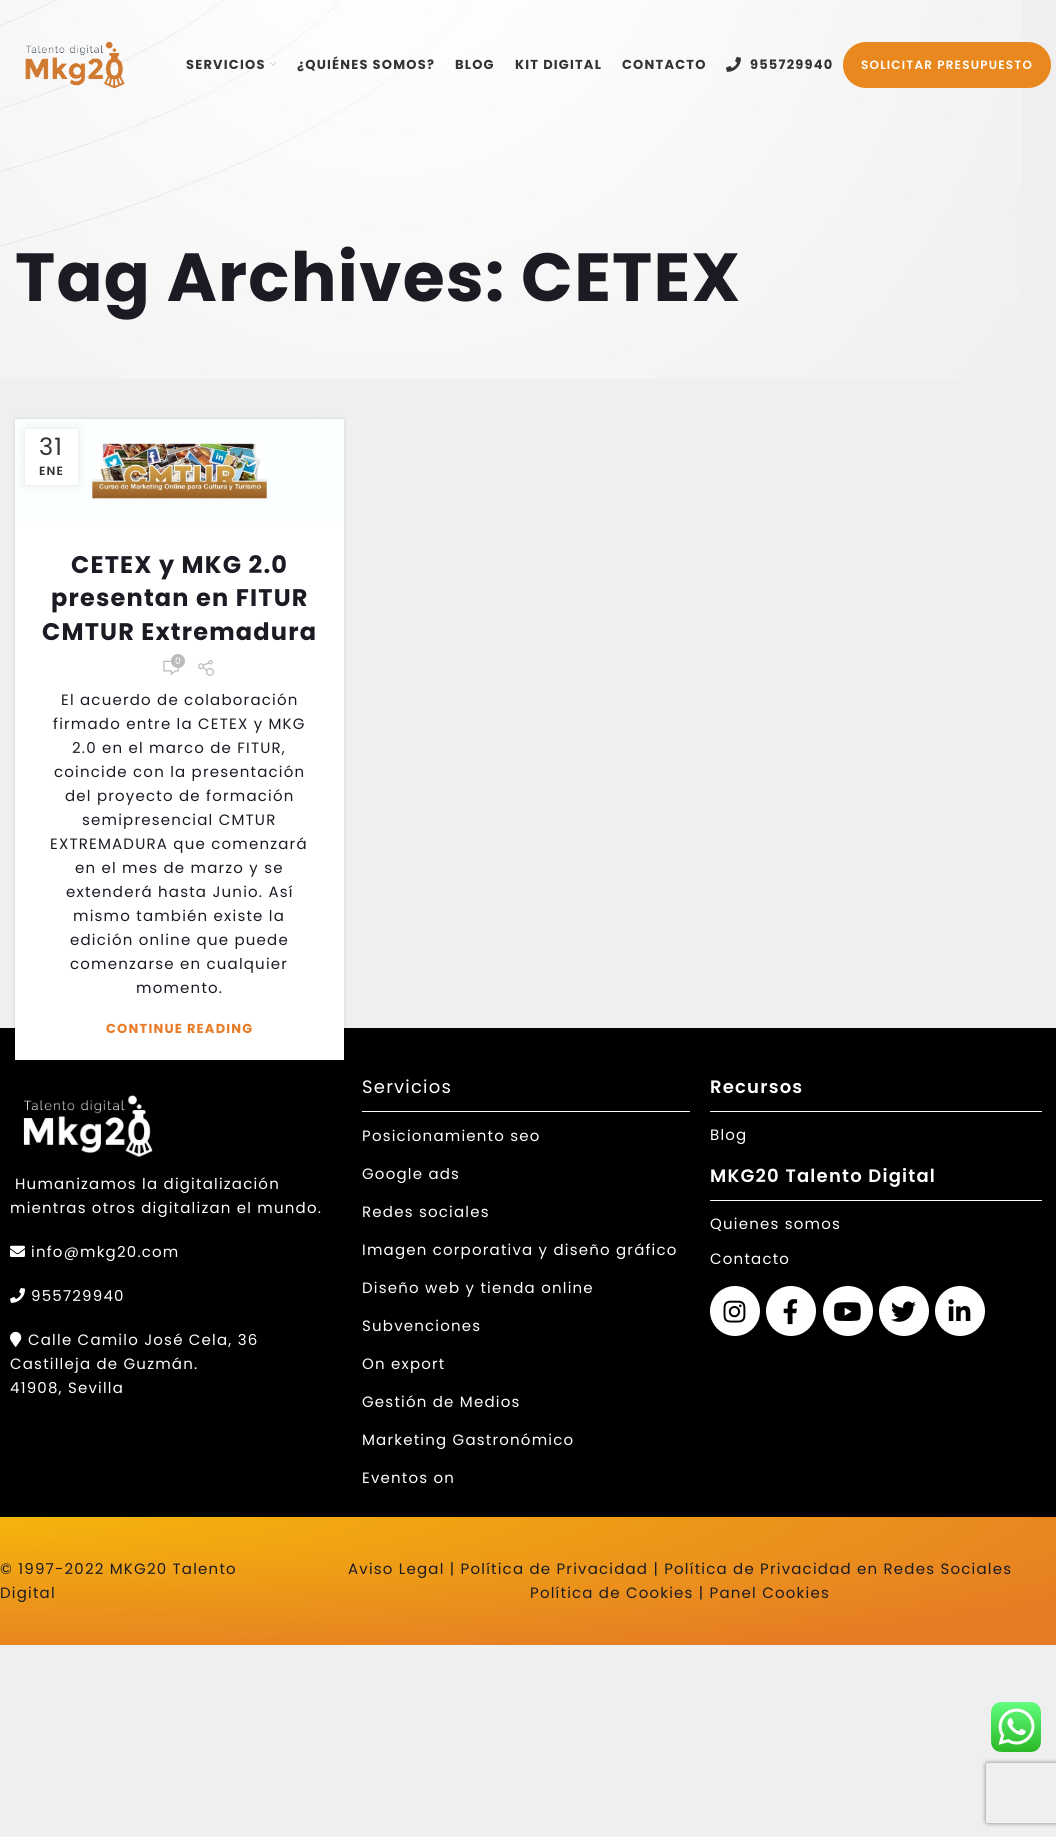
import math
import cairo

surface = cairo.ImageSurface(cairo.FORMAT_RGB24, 1056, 1837)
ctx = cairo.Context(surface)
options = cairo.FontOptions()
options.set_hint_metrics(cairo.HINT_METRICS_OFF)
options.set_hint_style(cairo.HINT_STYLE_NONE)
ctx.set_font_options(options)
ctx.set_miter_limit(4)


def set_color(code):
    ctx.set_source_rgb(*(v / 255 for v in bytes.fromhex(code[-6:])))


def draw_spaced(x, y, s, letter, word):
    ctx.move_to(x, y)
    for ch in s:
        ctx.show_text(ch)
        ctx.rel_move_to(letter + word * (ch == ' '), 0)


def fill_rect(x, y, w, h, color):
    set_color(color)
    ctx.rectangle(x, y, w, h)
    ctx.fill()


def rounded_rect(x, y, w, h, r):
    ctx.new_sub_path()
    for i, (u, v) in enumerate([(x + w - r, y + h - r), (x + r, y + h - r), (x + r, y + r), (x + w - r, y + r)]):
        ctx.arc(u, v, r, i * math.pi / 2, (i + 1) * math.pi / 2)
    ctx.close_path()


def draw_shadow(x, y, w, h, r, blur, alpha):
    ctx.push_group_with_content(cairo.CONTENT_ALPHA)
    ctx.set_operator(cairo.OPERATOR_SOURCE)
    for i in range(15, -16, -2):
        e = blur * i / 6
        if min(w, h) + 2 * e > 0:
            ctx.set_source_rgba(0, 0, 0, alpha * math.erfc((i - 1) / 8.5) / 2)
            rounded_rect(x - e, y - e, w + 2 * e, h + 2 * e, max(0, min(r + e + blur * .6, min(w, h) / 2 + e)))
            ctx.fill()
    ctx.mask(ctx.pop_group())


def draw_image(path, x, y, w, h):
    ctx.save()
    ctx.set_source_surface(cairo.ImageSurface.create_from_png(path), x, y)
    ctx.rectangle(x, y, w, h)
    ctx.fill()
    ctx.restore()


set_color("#efefef")
ctx.paint()
draw_image("assets/img4.png", 0, 0, 1022, 379)
draw_image("assets/img1.png", 25, 41, 100, 48)
ctx.select_font_face("Poppins", cairo.FONT_SLANT_NORMAL, cairo.FONT_WEIGHT_BOLD)
ctx.set_font_size(13)
set_color("#333333")
draw_spaced(186, 69, "SERVICIOS", 1.2, 0)
draw_image("assets/img2.png", 270, 62, 6, 4)
draw_spaced(297, 69, "¿QUIÉNES SOMOS?", 1.2, 0)
draw_spaced(455, 69, "BLOG", 1.2, 0)
draw_spaced(515, 69, "KIT DIGITAL", 1.2, 0)
draw_spaced(622, 69, "CONTACTO", 1.2, 0)
draw_image("assets/img3.png", 726, 56, 15, 16)
draw_spaced(750, 69, "955729940", 1.2, 0)
set_color("#e9881e")
rounded_rect(844.5, 43.5, 205, 43, 21.5)
ctx.fill_preserve()
ctx.set_line_width(3)
ctx.stroke()
ctx.select_font_face("Poppins SemiBold")
ctx.set_font_size(12)
set_color("#ffffff")
draw_spaced(861, 69, "SOLICITAR PRESUPUESTO", 1.2, 0)
ctx.select_font_face("Poppins", cairo.FONT_SLANT_NORMAL, cairo.FONT_WEIGHT_BOLD)
ctx.set_font_size(68)
set_color("#1a1b23")
draw_spaced(15, 301, "Tag Archives: CETEX", 1.2, 0)
set_color("#000000")
draw_shadow(15, 419, 329, 641, 0, 2, 0.12)
draw_image("assets/img5.png", 15, 419, 329, 104)
draw_shadow(25, 429, 53, 56, 0, 4.5, 0.1)
fill_rect(25, 429, 53, 56, "#ffffff")
ctx.select_font_face("Poppins")
ctx.set_font_size(24)
set_color("#333333")
draw_spaced(39, 455, "31", 1.2, 0)
ctx.select_font_face("Poppins SemiBold")
ctx.set_font_size(12)
draw_spaced(39, 475, "ENE", 1.2, 0)
fill_rect(0, 1028, 1056, 489, "#000000")
fill_rect(15, 523, 329, 537, "#ffffff")
ctx.select_font_face("Poppins", cairo.FONT_SLANT_NORMAL, cairo.FONT_WEIGHT_BOLD)
ctx.set_font_size(24)
set_color("#1a1b23")
draw_spaced(71, 573, "CETEX y MKG 2.0", 1.2, 0)
draw_spaced(51, 606, "presentan en FITUR", 1.2, 0)
draw_spaced(42, 640, "CMTUR Extremadura", 1.2, 0)
draw_image("assets/img6.png", 163, 660, 16, 15)
set_color("#bbbbbb")
ctx.arc(178, 661, 7, 0, 2 * math.pi)
ctx.fill()
ctx.select_font_face("Poppins")
ctx.set_font_size(9)
set_color("#ffffff")
draw_spaced(175, 664, "0", 1.2, 0)
draw_image("assets/img7.png", 198, 660, 16, 16)
ctx.set_font_size(15)
set_color("#1a1b23")
draw_spaced(61, 705, "El acuerdo de colaboración", 1.2, 0)
draw_spaced(53, 729, "firmado entre la CETEX y MKG", 1.2, 0)
draw_spaced(72, 753, "2.0 en el marco de FITUR,", 1.2, 0)
draw_spaced(54, 777, "coincide con la presentación", 1.2, 0)
draw_spaced(65, 801, "del proyecto de formación", 1.2, 0)
draw_spaced(82, 825, "semipresencial CMTUR", 1.2, 0)
draw_spaced(50, 849, "EXTREMADURA que comenzará", 1.2, 0)
draw_spaced(75, 873, "en el mes de marzo y se", 1.2, 0)
draw_spaced(66, 897, "extenderá hasta Junio. Así", 1.2, 0)
draw_spaced(73, 921, "mismo también existe la", 1.2, 0)
draw_spaced(70, 945, "edición online que puede", 1.2, 0)
draw_spaced(70, 969, "comenzarse en cualquier", 1.2, 0)
draw_spaced(136, 993, "momento.", 1.2, 0)
ctx.select_font_face("Poppins", cairo.FONT_SLANT_NORMAL, cairo.FONT_WEIGHT_BOLD)
ctx.set_font_size(13)
set_color("#e97b26")
draw_spaced(106, 1033, "CONTINUE READING", 1.2, 0)
draw_image("assets/img8.png", 23, 1095, 130, 62)
ctx.select_font_face("Poppins")
ctx.set_font_size(15)
set_color("#ffffff")
draw_spaced(15, 1189, "Humanizamos la digitalización", 1.2, 0)
draw_spaced(10, 1213, "mientras otros digitalizan el mundo.", 1.2, 0)
draw_image("assets/img9.png", 10, 1245, 15, 12)
draw_spaced(31, 1257, "info@mkg20.com", 1.2, 0)
draw_image("assets/img10.png", 10, 1287, 15, 16)
draw_spaced(31, 1301, "955729940", 1.2, 0)
draw_image("assets/img11.png", 10, 1331, 12, 16)
draw_spaced(28, 1345, "Calle Camilo José Cela, 36", 1.2, 0)
draw_spaced(10, 1369, "Castilleja de Guzmán.", 1.2, 0)
draw_spaced(10, 1393, "41908, Sevilla", 1.2, 0)
ctx.set_font_size(18)
draw_spaced(362, 1093, "Servicios", 1.2, 0)
fill_rect(362, 1111, 328, 1, "#ffffff")
ctx.set_font_size(15)
draw_spaced(362, 1141, "Posicionamiento seo", 1.2, 0)
draw_spaced(362, 1179, "Google ads", 1.2, 0)
draw_spaced(362, 1217, "Redes sociales", 1.2, 0)
draw_spaced(362, 1255, "Imagen corporativa y diseño gráfico", 1.2, 0)
draw_spaced(362, 1293, "Diseño web y tienda online", 1.2, 0)
draw_spaced(362, 1331, "Subvenciones", 1.2, 0)
draw_spaced(362, 1369, "On export", 1.2, 0)
draw_spaced(362, 1407, "Gestión de Medios", 1.2, 0)
draw_spaced(362, 1445, "Marketing Gastronómico", 1.2, 0)
draw_spaced(362, 1483, "Eventos on", 1.2, 0)
ctx.select_font_face("Poppins SemiBold")
ctx.set_font_size(18)
draw_spaced(710, 1093, "Recursos", 1.2, 0)
fill_rect(710, 1111, 332, 1, "#ffffff")
ctx.select_font_face("Poppins")
ctx.set_font_size(15)
draw_spaced(710, 1140, "Blog", 1.2, 0)
ctx.select_font_face("Poppins SemiBold")
ctx.set_font_size(18)
draw_spaced(710, 1182, "MKG20 Talento Digital", 1.2, 0)
fill_rect(710, 1200, 332, 1, "#ffffff")
ctx.select_font_face("Poppins")
ctx.set_font_size(15)
draw_spaced(710, 1229, "Quienes somos", 1.2, 0)
draw_spaced(710, 1264, "Contacto", 1.2, 0)
ctx.new_path()
ctx.arc(735, 1311, 25, 0, 2 * math.pi)
ctx.fill()
draw_image("assets/img12.png", 723, 1300, 23, 23)
ctx.arc(791, 1311, 25, 0, 2 * math.pi)
ctx.fill()
draw_image("assets/img13.png", 783, 1299, 15, 26)
ctx.arc(848, 1311, 25, 0, 2 * math.pi)
ctx.fill()
draw_image("assets/img14.png", 834, 1302, 27, 19)
ctx.arc(904, 1311, 25, 0, 2 * math.pi)
ctx.fill()
draw_image("assets/img15.png", 891, 1301, 25, 21)
ctx.arc(960, 1311, 25, 0, 2 * math.pi)
ctx.fill()
draw_image("assets/img16.png", 948, 1299, 23, 22)
gradient = cairo.RadialGradient(0, 0, 0, 0, 0, 1)
gradient.set_matrix(cairo.Matrix(1 / 1493, 0, 0, 1 / 181, -1 * 0 / 1493, -1 * 1517 / 181))
gradient.add_color_stop_rgba(0, 0.961, 0.71, 0.043, 1)
gradient.add_color_stop_rgba(0.88, 0.898, 0.482, 0.145, 1)
ctx.set_source(gradient)
ctx.rectangle(0, 1517, 1056, 128)
ctx.fill()
set_color("#1a1b23")
draw_spaced(0, 1574, "© 1997-2022 MKG20 Talento", 1.2, 0)
draw_spaced(0, 1598, "Digital", 1.2, 0)
draw_spaced(348, 1574, "Aviso Legal | Política de Privacidad | Política de Privacidad en Redes Sociales", 1.2, 0)
draw_spaced(530, 1598, "Política de Cookies | Panel Cookies", 1.2, 0)
draw_image("assets/img17.png", 991, 1702, 50, 50)
ctx.save()
ctx.set_fill_rule(cairo.FILL_RULE_EVEN_ODD)
ctx.new_path()
ctx.move_to(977, 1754)
ctx.line_to(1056, 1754)
ctx.line_to(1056, 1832)
ctx.line_to(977, 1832)
ctx.close_path()
ctx.move_to(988, 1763)
ctx.line_to(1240, 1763)
ctx.curve_to(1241, 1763, 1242, 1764, 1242, 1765)
ctx.line_to(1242, 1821)
ctx.curve_to(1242, 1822, 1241, 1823, 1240, 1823)
ctx.line_to(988, 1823)
ctx.curve_to(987, 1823, 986, 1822, 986, 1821)
ctx.line_to(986, 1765)
ctx.curve_to(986, 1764, 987, 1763, 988, 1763)
ctx.close_path()
ctx.clip()
set_color("#808080")
draw_shadow(986, 1763, 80, 60, 2, 2.5, 1)
ctx.restore()
surface.write_to_png("output.png")
